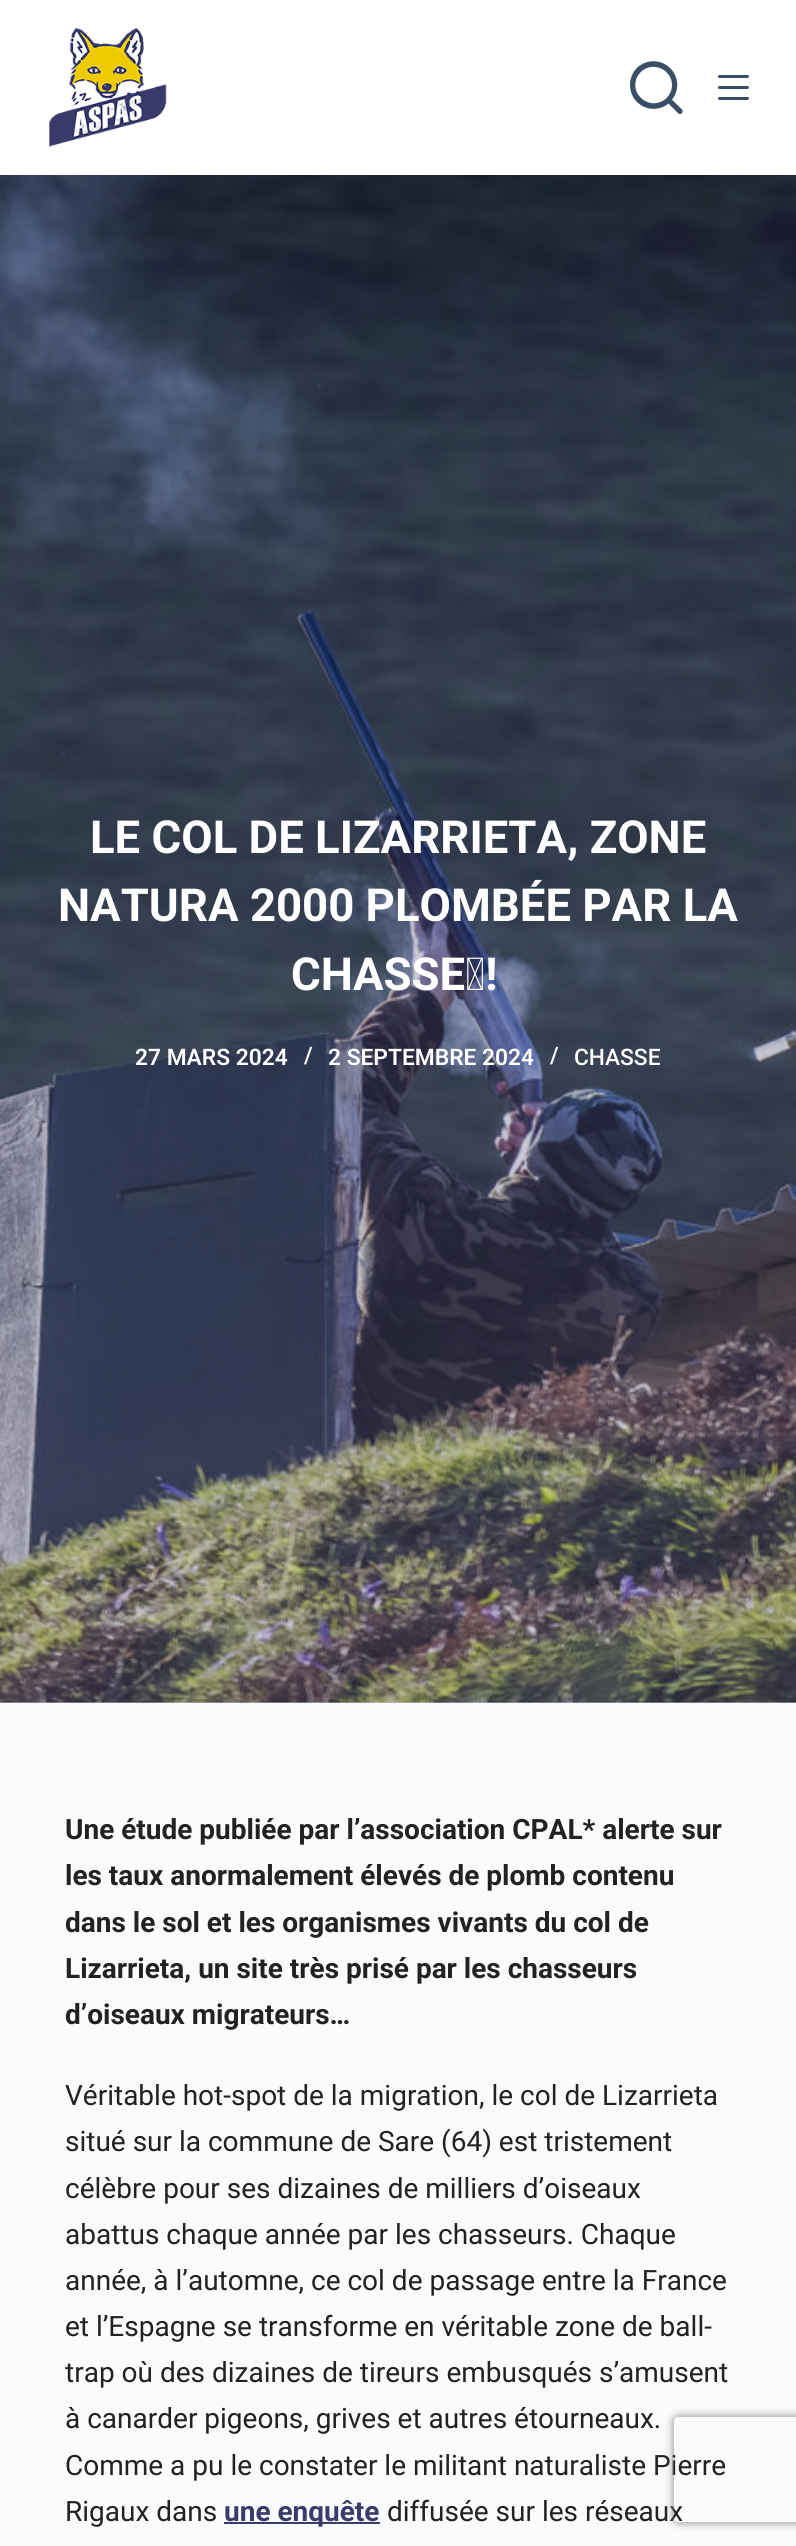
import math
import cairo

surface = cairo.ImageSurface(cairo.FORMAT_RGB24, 796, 2546)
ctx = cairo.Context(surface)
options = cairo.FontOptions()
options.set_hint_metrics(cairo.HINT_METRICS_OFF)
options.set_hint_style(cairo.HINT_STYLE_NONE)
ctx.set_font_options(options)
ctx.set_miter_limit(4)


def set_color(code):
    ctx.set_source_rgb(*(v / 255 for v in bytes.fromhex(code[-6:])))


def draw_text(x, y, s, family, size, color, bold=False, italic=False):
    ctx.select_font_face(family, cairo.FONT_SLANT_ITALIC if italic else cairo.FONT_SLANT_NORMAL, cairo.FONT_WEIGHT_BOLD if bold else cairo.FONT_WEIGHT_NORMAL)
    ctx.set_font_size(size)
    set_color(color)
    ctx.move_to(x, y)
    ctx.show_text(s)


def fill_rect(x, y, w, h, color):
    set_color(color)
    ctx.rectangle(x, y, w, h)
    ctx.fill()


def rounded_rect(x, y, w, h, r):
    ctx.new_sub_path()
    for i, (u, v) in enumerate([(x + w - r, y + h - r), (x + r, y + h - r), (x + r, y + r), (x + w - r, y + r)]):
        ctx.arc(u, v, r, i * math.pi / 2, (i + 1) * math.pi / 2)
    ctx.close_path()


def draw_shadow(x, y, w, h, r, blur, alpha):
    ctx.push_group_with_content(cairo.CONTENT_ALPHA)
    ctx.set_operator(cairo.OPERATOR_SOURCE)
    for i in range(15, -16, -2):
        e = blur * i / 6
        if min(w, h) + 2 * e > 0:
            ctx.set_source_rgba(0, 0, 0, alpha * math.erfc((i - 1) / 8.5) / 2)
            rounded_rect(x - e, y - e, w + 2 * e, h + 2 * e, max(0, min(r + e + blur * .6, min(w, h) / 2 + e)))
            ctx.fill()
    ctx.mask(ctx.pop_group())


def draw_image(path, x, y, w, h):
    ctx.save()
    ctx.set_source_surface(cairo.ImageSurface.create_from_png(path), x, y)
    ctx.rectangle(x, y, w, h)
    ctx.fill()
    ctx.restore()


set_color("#fafbfc")
ctx.paint()
fill_rect(0, 0, 796, 175, "#ffffff")
draw_image("assets/img1.png", 49, 28, 118, 119)
draw_image("assets/img2.png", 630, 61, 53, 53)
set_color("#3a4f66")
rounded_rect(718, 75, 31, 3, 1.5)
ctx.fill()
rounded_rect(718, 86, 31, 3, 1.5)
ctx.fill()
rounded_rect(718, 97, 31, 3, 1.5)
ctx.fill()
fill_rect(0, 1702, 796, 1, "#c0c3d1")
draw_image("assets/img3.png", 0, 175, 796, 1528)
draw_text(90, 853, "LE COL DE LIZARRIETA, ZONE", "Roboto", 45.5, "#ffffff", bold=True)
draw_text(58, 921, "NATURA 2000 PLOMBÉE PAR LA", "Roboto", 45.5, "#ffffff", bold=True)
draw_text(291, 990, "CHASSE !", "Roboto", 45.5, "#ffffff", bold=True)
draw_text(135, 1065, "27 MARS 2024", "Roboto SemiBold", 22.75, "#ffffff")
draw_text(304, 1063, "/", "Roboto SemiBold", 22.75, "#ffffff")
draw_text(328, 1065, "2 SEPTEMBRE 2024", "Roboto SemiBold", 22.75, "#ffffff")
draw_text(550, 1063, "/", "Roboto SemiBold", 22.75, "#ffffff")
draw_text(574, 1065, "CHASSE", "Roboto Medium", 22.75, "#ffffff")
draw_text(65, 1839, "Une étude publiée par l’association CPAL* alerte sur", "Roboto", 28, "#222222", bold=True)
draw_text(65, 1885, "les taux anormalement élevés de plomb contenu", "Roboto", 28, "#222222", bold=True)
draw_text(65, 1932, "dans le sol et les organismes vivants du col de", "Roboto", 28, "#222222", bold=True)
draw_text(65, 1978, "Lizarrieta, un site très prisé par les chasseurs", "Roboto", 28, "#222222", bold=True)
draw_text(65, 2024, "d’oiseaux migrateurs…", "Roboto", 28, "#222222", bold=True)
draw_text(65, 2105, "Véritable hot-spot de la migration, le col de Lizarrieta", "Roboto", 28, "#222222")
draw_text(65, 2151, "situé sur la commune de Sare (64) est tristement", "Roboto", 28, "#222222")
draw_text(65, 2198, "célèbre pour ses dizaines de milliers d’oiseaux", "Roboto", 28, "#222222")
draw_text(65, 2244, "abattus chaque année par les chasseurs. Chaque", "Roboto", 28, "#222222")
draw_text(65, 2290, "année, à l’automne, ce col de passage entre la France", "Roboto", 28, "#222222")
draw_text(65, 2336, "et l’Espagne se transforme en véritable zone de ball-", "Roboto", 28, "#222222")
draw_text(65, 2382, "trap où des dizaines de tireurs embusqués s’amusent", "Roboto", 28, "#222222")
draw_text(65, 2428, "à canarder pigeons, grives et autres étourneaux.", "Roboto", 28, "#222222")
draw_text(65, 2475, "Comme a pu le constater le militant naturaliste Pierre", "Roboto", 28, "#222222")
draw_text(65, 2521, "Rigaux dans", "Roboto", 28, "#222222")
fill_rect(224, 2522, 156, 2, "#393c6b")
draw_text(224, 2521, "une enquête", "Roboto", 28, "#393c6b", bold=True)
draw_text(387, 2521, "diffusée sur les réseaux", "Roboto", 28, "#222222")
ctx.save()
ctx.set_fill_rule(cairo.FILL_RULE_EVEN_ODD)
ctx.new_path()
ctx.move_to(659, 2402)
ctx.line_to(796, 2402)
ctx.line_to(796, 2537)
ctx.line_to(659, 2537)
ctx.close_path()
ctx.move_to(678, 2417)
ctx.line_to(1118, 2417)
ctx.curve_to(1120, 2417, 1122, 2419, 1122, 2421)
ctx.line_to(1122, 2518)
ctx.curve_to(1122, 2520, 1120, 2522, 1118, 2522)
ctx.line_to(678, 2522)
ctx.curve_to(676, 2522, 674, 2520, 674, 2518)
ctx.line_to(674, 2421)
ctx.curve_to(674, 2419, 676, 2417, 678, 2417)
ctx.close_path()
ctx.clip()
set_color("#808080")
draw_shadow(674, 2417, 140, 105, 4, 4.5, 1)
ctx.restore()
surface.write_to_png("output.png")
